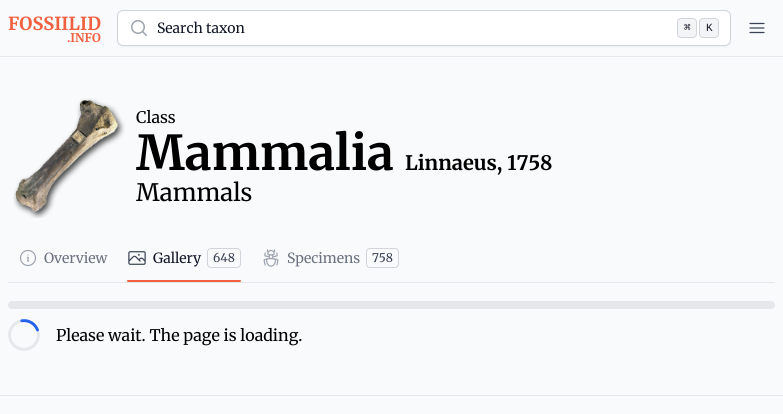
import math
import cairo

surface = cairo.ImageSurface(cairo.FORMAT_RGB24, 783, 414)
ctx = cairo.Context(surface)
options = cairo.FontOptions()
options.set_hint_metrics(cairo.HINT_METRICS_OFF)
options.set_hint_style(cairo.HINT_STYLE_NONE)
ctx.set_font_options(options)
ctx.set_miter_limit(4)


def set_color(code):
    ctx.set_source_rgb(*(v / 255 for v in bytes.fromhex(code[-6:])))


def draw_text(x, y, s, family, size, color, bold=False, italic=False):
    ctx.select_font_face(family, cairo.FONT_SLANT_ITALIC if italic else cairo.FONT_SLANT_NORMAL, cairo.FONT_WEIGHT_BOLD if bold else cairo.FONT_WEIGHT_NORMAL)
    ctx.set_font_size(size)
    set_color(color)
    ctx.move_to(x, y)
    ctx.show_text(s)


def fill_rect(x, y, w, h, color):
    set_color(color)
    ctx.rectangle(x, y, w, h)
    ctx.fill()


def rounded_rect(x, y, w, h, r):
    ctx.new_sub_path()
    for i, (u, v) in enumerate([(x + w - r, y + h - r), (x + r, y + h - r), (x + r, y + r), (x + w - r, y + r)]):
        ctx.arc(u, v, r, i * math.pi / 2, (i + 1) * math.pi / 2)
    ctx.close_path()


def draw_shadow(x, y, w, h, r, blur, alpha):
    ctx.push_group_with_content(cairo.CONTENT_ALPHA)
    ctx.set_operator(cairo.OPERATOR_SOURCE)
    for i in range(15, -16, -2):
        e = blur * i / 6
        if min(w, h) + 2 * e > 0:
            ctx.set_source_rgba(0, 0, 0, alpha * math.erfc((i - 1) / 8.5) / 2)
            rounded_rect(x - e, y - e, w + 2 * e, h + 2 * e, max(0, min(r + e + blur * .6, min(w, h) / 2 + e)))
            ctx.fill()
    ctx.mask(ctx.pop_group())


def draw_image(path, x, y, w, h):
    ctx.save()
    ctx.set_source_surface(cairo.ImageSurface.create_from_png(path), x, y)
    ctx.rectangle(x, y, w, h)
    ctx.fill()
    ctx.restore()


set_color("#f9fafb")
ctx.paint()
fill_rect(0, 56, 783, 1, "#e5e7eb")
draw_text(8, 30, "FOSSIILID", "Merriweather", 18, "#f05f40", bold=True)
draw_text(67, 42, ".INFO", "Merriweather", 12, "#f05f40", bold=True)
set_color("#000000")
draw_shadow(117, 11, 614, 36, 6, 1, 0.05)
set_color("#ffffff")
rounded_rect(117.5, 10.5, 613, 35, 5.5)
ctx.fill_preserve()
set_color("#d1d5db")
ctx.set_line_width(1)
ctx.stroke()
draw_image("assets/img1.png", 131, 20, 16, 16)
draw_text(157, 33, "Search taxon", "Merriweather", 14, "#111827")
set_color("#f3f4f6")
rounded_rect(677.5, 18.5, 19, 19, 3.5)
ctx.fill_preserve()
set_color("#d1d5db")
ctx.stroke()
draw_text(684, 31, "⌘", "DejaVu Sans Mono", 11, "#111827")
set_color("#f3f4f6")
rounded_rect(699.5, 18.5, 19, 19, 3.5)
ctx.fill_preserve()
set_color("#d1d5db")
ctx.stroke()
draw_text(706, 31, "K", "Liberation Mono", 11, "#111827")
ctx.new_path()
ctx.move_to(750, 23.5)
ctx.line_to(764, 23.5)
ctx.move_to(750, 28)
ctx.line_to(764, 28)
ctx.move_to(750, 32.5)
ctx.line_to(764, 32.5)
set_color("#374151")
ctx.set_line_width(1.2)
ctx.set_line_cap(cairo.LINE_CAP_ROUND)
ctx.set_line_join(cairo.LINE_JOIN_ROUND)
ctx.stroke()
draw_image("assets/img2.png", 13, 98, 112, 120)
draw_text(136, 123, "Class", "Merriweather", 16, "#000000")
draw_text(136, 170, "Mammalia", "Merriweather", 48, "#000000", bold=True)
draw_text(405, 170, "Linnaeus, 1758", "Merriweather", 20, "#000000", bold=True)
draw_text(136, 201, "Mammals", "Merriweather", 24, "#000000")
fill_rect(8, 282, 767, 1, "#e5e7eb")
draw_image("assets/img3.png", 19, 249, 18, 18)
draw_text(44, 263, "Overview", "Merriweather", 14, "#6b7280")
draw_image("assets/img4.png", 128, 251, 18, 14)
draw_text(153, 263, "Gallery", "Merriweather", 14, "#111827")
rounded_rect(207.5, 248.5, 33, 19, 3.5)
set_color("#d1d5db")
ctx.set_line_width(1)
ctx.set_line_cap(cairo.LINE_CAP_BUTT)
ctx.set_line_join(cairo.LINE_JOIN_MITER)
ctx.stroke()
draw_text(213, 262, "648", "Merriweather", 12, "#374151")
set_color("#f05f40")
rounded_rect(127, 280, 114, 2, 1)
ctx.fill()
draw_image("assets/img5.png", 263, 249, 16, 18)
draw_text(287, 263, "Specimens", "Merriweather", 14, "#6b7280")
rounded_rect(366.5, 248.5, 32, 19, 3.5)
set_color("#d1d5db")
ctx.stroke()
draw_text(372, 262, "758", "Merriweather", 12, "#374151")
set_color("#e5e7eb")
rounded_rect(8, 301, 767, 8, 4)
ctx.fill()
draw_image("assets/img6.png", 8, 319, 32, 32)
draw_text(56, 341, "Please wait. The page is loading.", "Merriweather", 16, "#000000")
fill_rect(0, 395, 783, 1, "#e5e7eb")
surface.write_to_png("output.png")
